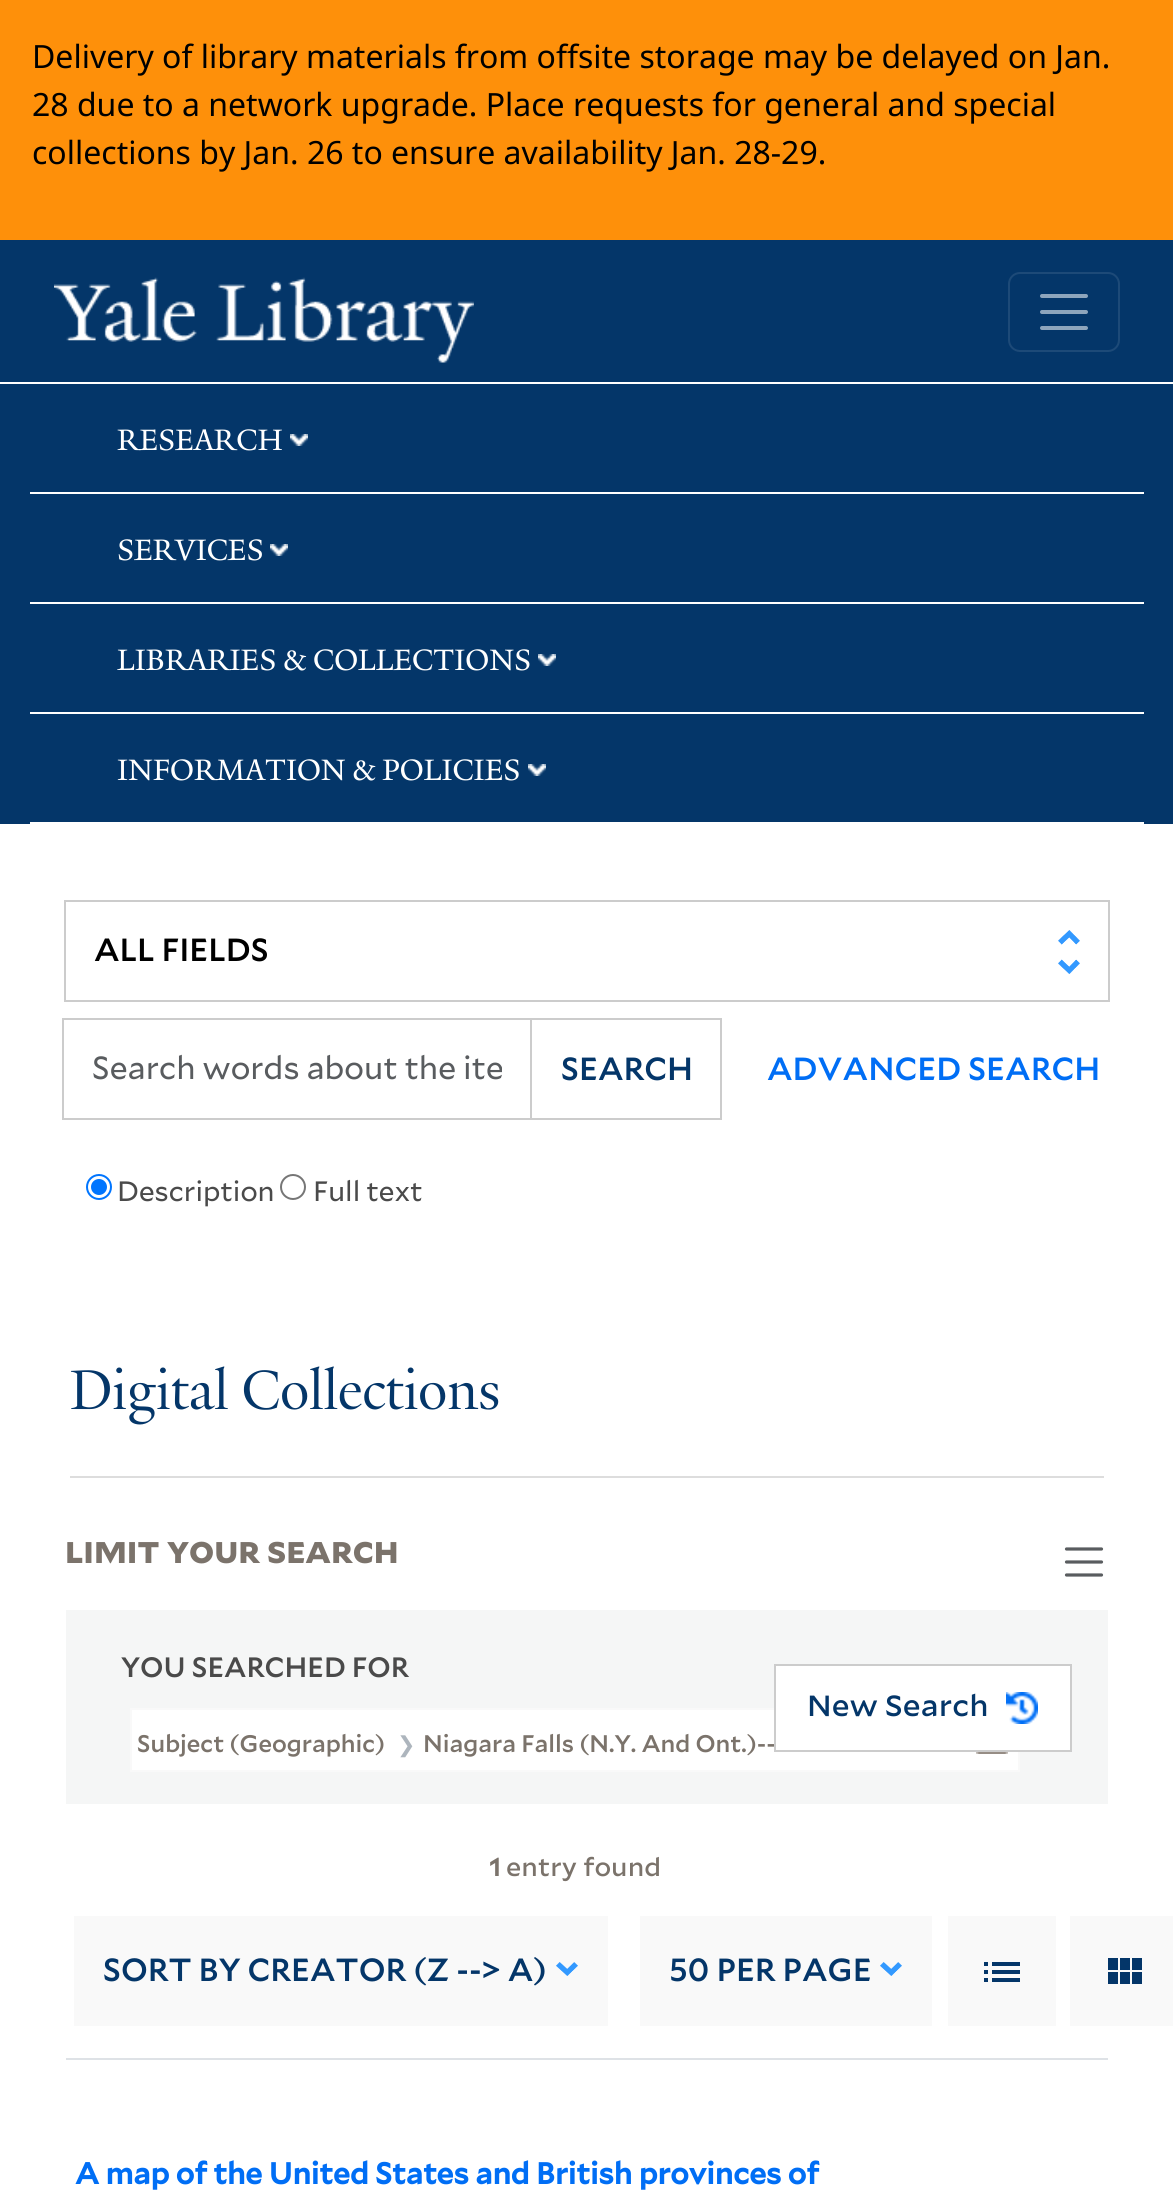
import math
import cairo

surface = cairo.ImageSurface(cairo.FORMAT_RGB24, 1173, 2205)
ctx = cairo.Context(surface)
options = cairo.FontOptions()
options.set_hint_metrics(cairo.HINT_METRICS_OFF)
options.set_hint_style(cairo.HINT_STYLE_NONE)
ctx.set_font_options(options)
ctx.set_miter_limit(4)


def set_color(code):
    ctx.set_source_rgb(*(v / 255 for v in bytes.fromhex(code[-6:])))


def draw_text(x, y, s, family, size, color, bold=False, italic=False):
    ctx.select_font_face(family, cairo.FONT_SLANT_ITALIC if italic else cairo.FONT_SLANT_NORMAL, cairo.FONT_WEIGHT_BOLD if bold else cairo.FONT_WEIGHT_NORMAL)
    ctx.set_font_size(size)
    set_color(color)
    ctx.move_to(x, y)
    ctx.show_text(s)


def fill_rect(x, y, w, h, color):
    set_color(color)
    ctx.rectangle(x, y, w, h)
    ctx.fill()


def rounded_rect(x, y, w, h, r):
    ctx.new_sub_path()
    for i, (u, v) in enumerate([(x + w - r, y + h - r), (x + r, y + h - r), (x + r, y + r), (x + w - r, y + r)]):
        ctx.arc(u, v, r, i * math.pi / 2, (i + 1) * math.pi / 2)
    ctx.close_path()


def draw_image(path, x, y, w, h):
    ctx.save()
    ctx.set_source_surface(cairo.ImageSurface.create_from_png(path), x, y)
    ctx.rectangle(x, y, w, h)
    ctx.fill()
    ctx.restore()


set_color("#ffffff")
ctx.paint()
fill_rect(0, 0, 1173, 240, "#fe900a")
draw_text(32, 68, "Delivery of library materials from offsite storage may be delayed on Jan.", "Noto Sans", 32, "#000000")
draw_text(32, 116, "28 due to a network upgrade. Place requests for general and special", "Noto Sans", 32, "#000000")
draw_text(32, 164, "collections by Jan. 26 to ensure availability Jan. 28-29.", "Noto Sans", 32, "#000000")
fill_rect(0, 240, 1173, 142, "#043669")
draw_image("assets/img1.png", 54, 277, 420, 86)
rounded_rect(1009, 273, 110, 78, 11)
set_color("#1d4a78")
ctx.stroke()
ctx.new_path()
ctx.move_to(1042, 296)
ctx.line_to(1086, 296)
ctx.move_to(1042, 312)
ctx.line_to(1086, 312)
ctx.move_to(1042, 328)
ctx.line_to(1086, 328)
set_color("#8ea5bc")
ctx.set_line_width(4)
ctx.set_line_cap(cairo.LINE_CAP_ROUND)
ctx.stroke()
fill_rect(0, 384, 1173, 440, "#043669")
fill_rect(30, 492, 1114, 2, "#ffffff")
draw_text(117, 450, "RESEARCH", "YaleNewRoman", 32, "#ffffff")
draw_image("assets/img2.png", 290, 434, 18, 12)
fill_rect(30, 602, 1114, 2, "#ffffff")
draw_text(117, 560, "SERVICES", "YaleNewRoman", 32, "#ffffff")
draw_image("assets/img2.png", 270, 544, 18, 12)
fill_rect(30, 712, 1114, 2, "#ffffff")
draw_text(117, 670, "LIBRARIES & COLLECTIONS", "YaleNewRoman", 32, "#ffffff")
draw_image("assets/img2.png", 538, 654, 18, 12)
fill_rect(30, 822, 1114, 2, "#ffffff")
draw_text(117, 780, "INFORMATION & POLICIES", "YaleNewRoman", 32, "#ffffff")
draw_image("assets/img2.png", 528, 764, 18, 12)
draw_image("assets/img3.png", 1058, 930, 22, 44)
ctx.rectangle(65, 901, 1044, 100)
set_color("#cccccc")
ctx.set_line_width(2)
ctx.set_line_cap(cairo.LINE_CAP_BUTT)
ctx.stroke()
draw_text(94, 961, "ALL FIELDS", "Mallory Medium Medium", 32, "#000000")
ctx.rectangle(63, 1019, 468, 100)
set_color("#cccccc")
ctx.stroke()
ctx.save()
ctx.rectangle(92, 1048, 410, 44)
ctx.clip()
draw_text(92, 1079, "Search words about the ite", "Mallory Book", 32, "#595c5f")
ctx.restore()
ctx.rectangle(531, 1019, 190, 100)
ctx.stroke()
draw_text(561, 1080, "SEARCH", "Mallory Medium Medium", 32, "#043669")
draw_text(767, 1080, "ADVANCED SEARCH", "Mallory Medium Medium", 32, "#006ef5")
ctx.new_path()
ctx.arc(99, 1187, 12, 0, 2 * math.pi)
set_color("#0075ff")
ctx.stroke()
ctx.arc(99, 1187, 8, 0, 2 * math.pi)
ctx.fill()
draw_text(117, 1201, "Description", "Mallory Book", 28, "#4a4a4a")
ctx.new_path()
ctx.arc(293, 1187, 12, 0, 2 * math.pi)
set_color("#767676")
ctx.stroke()
draw_text(313, 1201, "Full text", "Mallory Book", 28, "#4a4a4a")
fill_rect(70, 1476, 1034, 2, "#dddddd")
draw_text(70, 1409, "Digital Collections", "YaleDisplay", 60, "#043669")
draw_text(65, 1563, "LIMIT YOUR SEARCH", "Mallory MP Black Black", 28.75, "#7b736b")
ctx.new_path()
ctx.move_to(1066.5, 1549)
ctx.line_to(1101.5, 1549)
ctx.move_to(1066.5, 1562)
ctx.line_to(1101.5, 1562)
ctx.move_to(1066.5, 1575)
ctx.line_to(1101.5, 1575)
set_color("#595c5f")
ctx.set_line_width(3.2)
ctx.set_line_cap(cairo.LINE_CAP_ROUND)
ctx.stroke()
fill_rect(66, 1610, 1042, 194, "#f5f6f6")
draw_text(121, 1677, "YOU SEARCHED FOR", "Mallory Medium Medium", 28, "#4a4a4a")
set_color("#ffffff")
ctx.rectangle(131, 1709, 888, 62)
ctx.fill_preserve()
set_color("#f9f9f9")
ctx.set_line_width(2)
ctx.set_line_cap(cairo.LINE_CAP_BUTT)
ctx.stroke()
draw_text(423, 1752, "Niagara Falls (N.Y. And Ont.)--", "Mallory Medium Medium", 24, "#7b736b")
set_color("#ffffff")
ctx.rectangle(775, 1665, 296, 86)
ctx.fill_preserve()
set_color("#cccccc")
ctx.stroke()
draw_text(807, 1716, "New Search", "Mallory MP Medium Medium", 28, "#043669")
draw_image("assets/img4.png", 1006, 1692, 32, 32)
draw_text(137, 1752, "Subject (Geographic)", "Mallory Medium Medium", 24, "#7b736b")
draw_text(397, 1752, "❯", "DejaVu Sans", 22, "#adb5bd")
draw_image("assets/img5.png", 976, 1752, 32, 2)
fill_rect(66, 2058, 1042, 2, "#dee2e6")
draw_text(489, 1876, "1", "Mallory MP Medium", 24, "#7b736b", bold=True)
draw_text(506, 1876, "entry found", "Mallory MP Medium Medium", 24, "#7b736b")
fill_rect(74, 1916, 534, 110, "#f9f9f9")
draw_text(103, 1981, "SORT BY CREATOR (Z --> A)", "Mallory Medium Medium", 32, "#043669")
draw_image("assets/img6.png", 556, 1962, 22, 14)
fill_rect(640, 1916, 292, 110, "#f9f9f9")
draw_text(669, 1981, "50 PER PAGE", "Mallory Medium Medium", 32, "#043669")
draw_image("assets/img7.png", 880, 1962, 22, 14)
fill_rect(948, 1916, 108, 110, "#f9f9f9")
draw_image("assets/img8.png", 984, 1962, 36, 20)
fill_rect(1070, 1916, 103, 110, "#f9f9f9")
draw_image("assets/img9.png", 1108, 1958, 34, 26)
draw_text(75, 2184, "A map of the United States and British provinces of", "Mallory Medium", 30, "#006ef5", bold=True)
surface.write_to_png("output.png")
